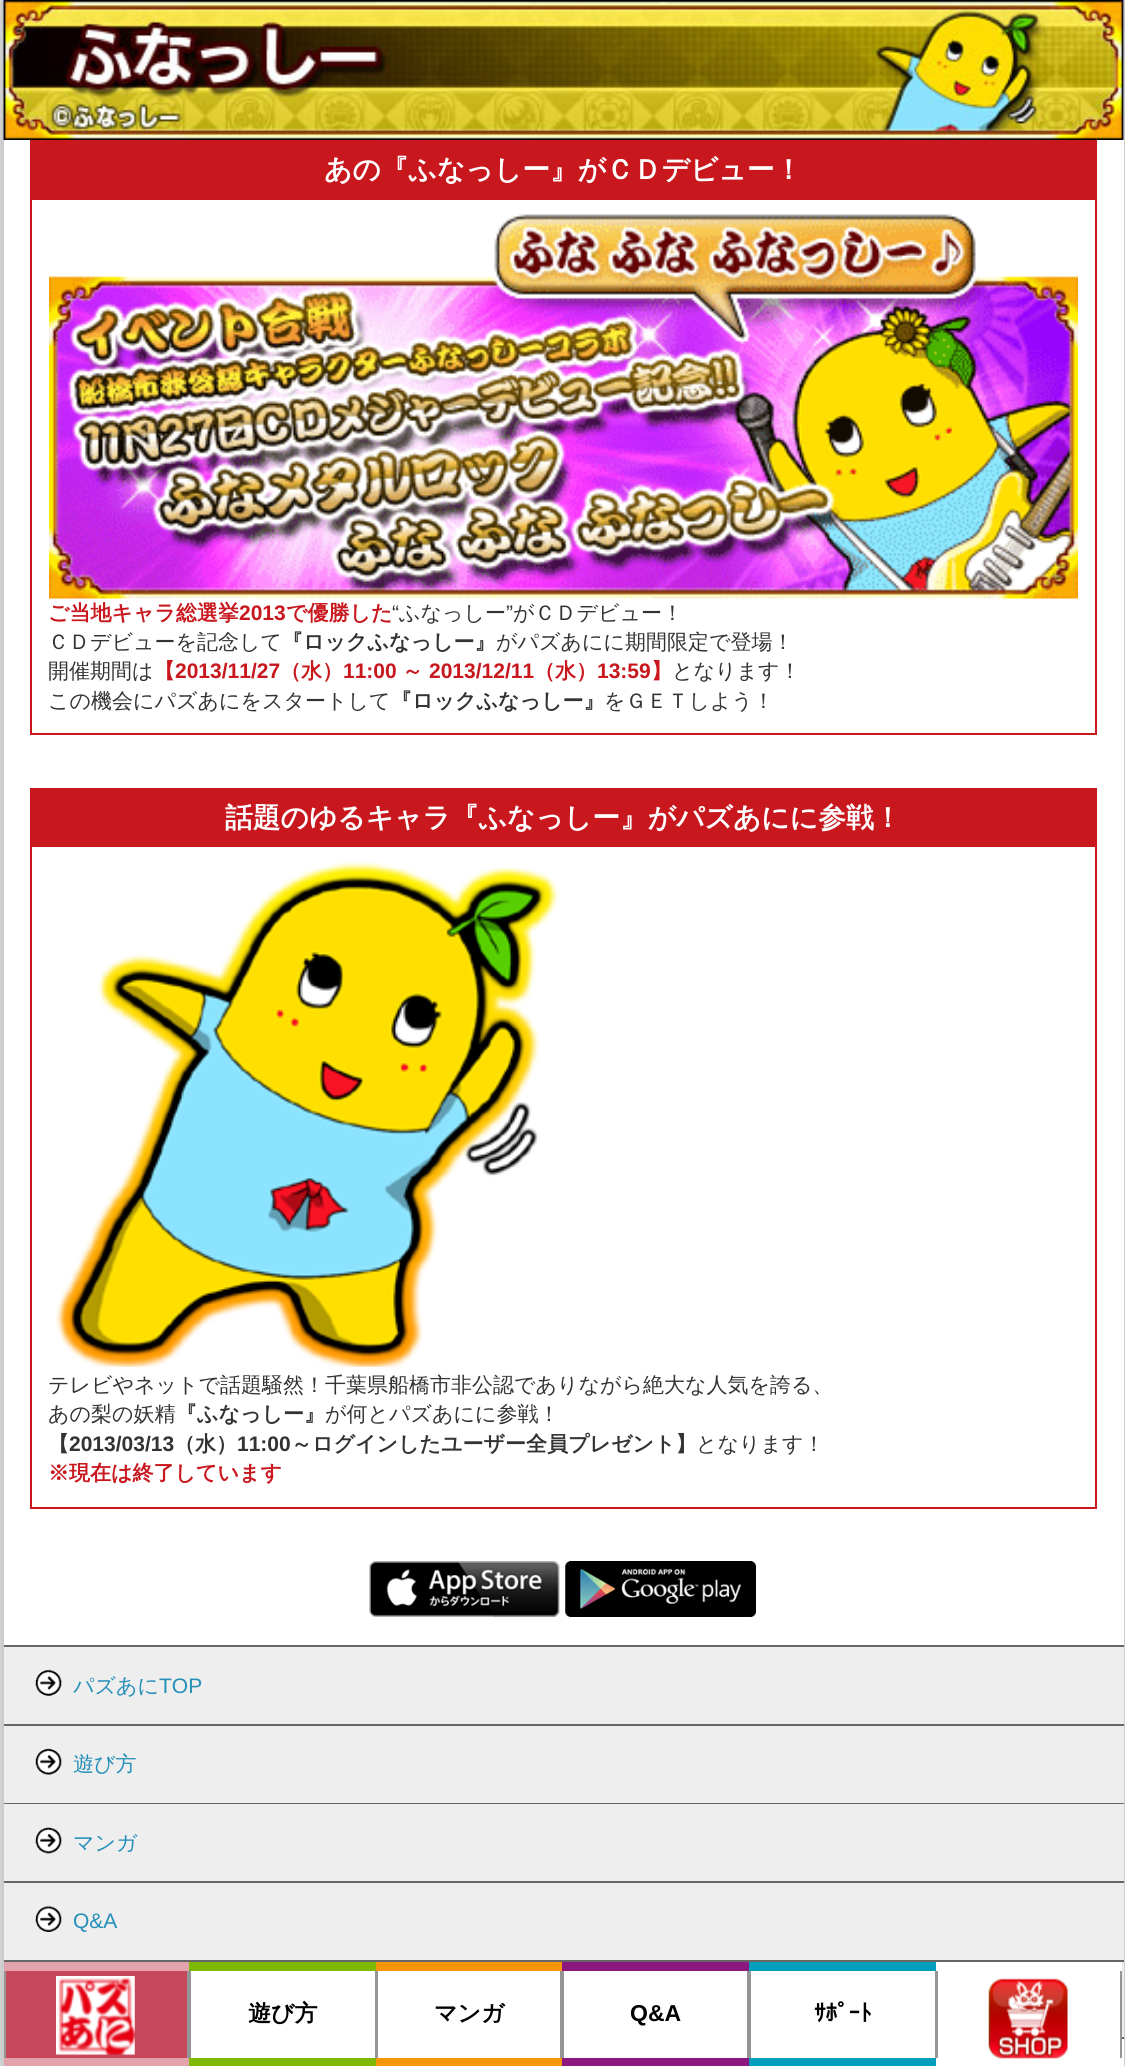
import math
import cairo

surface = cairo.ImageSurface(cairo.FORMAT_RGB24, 1125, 2066)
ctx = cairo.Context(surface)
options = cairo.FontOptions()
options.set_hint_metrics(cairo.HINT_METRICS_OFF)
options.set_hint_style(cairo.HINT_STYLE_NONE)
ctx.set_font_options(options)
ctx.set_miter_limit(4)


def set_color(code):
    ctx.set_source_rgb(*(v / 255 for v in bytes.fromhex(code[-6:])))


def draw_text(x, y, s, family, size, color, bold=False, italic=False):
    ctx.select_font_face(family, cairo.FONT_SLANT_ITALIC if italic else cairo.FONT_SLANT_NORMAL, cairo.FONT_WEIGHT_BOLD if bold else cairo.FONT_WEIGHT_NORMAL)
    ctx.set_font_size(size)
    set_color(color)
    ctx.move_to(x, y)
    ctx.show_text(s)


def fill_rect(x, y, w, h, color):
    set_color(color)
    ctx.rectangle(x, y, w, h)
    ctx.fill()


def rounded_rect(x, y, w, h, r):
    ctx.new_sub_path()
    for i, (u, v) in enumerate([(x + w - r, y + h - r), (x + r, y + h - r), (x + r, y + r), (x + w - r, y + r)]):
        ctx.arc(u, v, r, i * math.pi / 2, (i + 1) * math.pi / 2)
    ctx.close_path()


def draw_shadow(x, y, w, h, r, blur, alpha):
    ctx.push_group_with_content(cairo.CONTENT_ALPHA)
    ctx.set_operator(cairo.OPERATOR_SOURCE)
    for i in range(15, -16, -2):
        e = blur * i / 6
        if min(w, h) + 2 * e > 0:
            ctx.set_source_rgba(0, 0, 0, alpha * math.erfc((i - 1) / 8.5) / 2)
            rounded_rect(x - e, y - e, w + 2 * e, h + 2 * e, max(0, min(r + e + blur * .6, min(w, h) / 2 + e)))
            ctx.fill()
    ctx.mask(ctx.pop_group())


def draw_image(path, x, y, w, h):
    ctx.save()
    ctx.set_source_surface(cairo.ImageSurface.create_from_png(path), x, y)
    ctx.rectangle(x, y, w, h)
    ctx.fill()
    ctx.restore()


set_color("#ffffff")
ctx.paint()
ctx.save()
ctx.rectangle(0, 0, 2, 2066)
ctx.clip()
set_color("#999999")
draw_shadow(2, 0, 1123, 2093, 0, 9, 1)
ctx.restore()
fill_rect(1124, 0, 1, 2066, "#cccccc")
fill_rect(2, 0, 2, 2066, "#cccccc")
draw_image("assets/img1.png", 3, 0, 1121, 140)
fill_rect(30, 140, 1067, 58, "#c9171e")
draw_text(324, 179, "あの『ふなっしー』がＣＤデビュー！", "WenQuanYi Zen Hei", 27.75, "#ffffff", bold=True)
ctx.rectangle(31, 199, 1065, 535)
set_color("#c9171e")
ctx.stroke()
draw_image("assets/img2.png", 49, 214, 1029, 385)
draw_text(48, 620, "ご当地キャラ総選挙", "WenQuanYi Zen Hei", 21, "#c9171e", bold=True)
draw_text(239, 620, "2013", "Liberation Sans", 21, "#c9171e", bold=True)
draw_text(286, 620, "で優勝した", "WenQuanYi Zen Hei", 21, "#c9171e", bold=True)
draw_text(392, 620, "“", "Liberation Sans", 21, "#333333")
draw_text(399, 620, "ふなっしー", "WenQuanYi Zen Hei Medium", 21, "#333333")
draw_text(506, 620, "”", "Liberation Sans", 21, "#333333")
draw_text(513, 620, "がＣＤデビュー！", "WenQuanYi Zen Hei Medium", 21, "#333333")
draw_text(48, 649, "ＣＤデビューを記念して", "WenQuanYi Zen Hei Medium", 21, "#333333")
draw_text(282, 649, "『ロックふなっしー』", "WenQuanYi Zen Hei", 21, "#333333", bold=True)
draw_text(496, 649, "がパズあにに期間限定で登場！", "WenQuanYi Zen Hei Medium", 21, "#333333")
draw_text(48, 678, "開催期間は", "WenQuanYi Zen Hei Medium", 21, "#333333")
draw_text(154, 678, "【", "WenQuanYi Zen Hei", 21, "#c9171e", bold=True)
draw_text(175, 678, "2013/11/27", "Liberation Sans", 21, "#c9171e", bold=True)
draw_text(280, 678, "（水）", "WenQuanYi Zen Hei", 21, "#c9171e", bold=True)
draw_text(343, 678, "11:00", "Liberation Sans", 21, "#c9171e", bold=True)
draw_text(402, 678, "～", "WenQuanYi Zen Hei", 21, "#c9171e", bold=True)
draw_text(429, 678, "2013/12/11", "Liberation Sans", 21, "#c9171e", bold=True)
draw_text(534, 678, "（水）", "WenQuanYi Zen Hei", 21, "#c9171e", bold=True)
draw_text(597, 678, "13:59", "Liberation Sans", 21, "#c9171e", bold=True)
draw_text(651, 678, "】", "WenQuanYi Zen Hei", 21, "#c9171e", bold=True)
draw_text(672, 678, "となります！", "WenQuanYi Zen Hei Medium", 21, "#333333")
draw_text(48, 708, "この機会にパズあにをスタートして", "WenQuanYi Zen Hei Medium", 21, "#333333")
draw_text(391, 708, "『ロックふなっしー』", "WenQuanYi Zen Hei", 21, "#333333", bold=True)
draw_text(604, 708, "をＧＥＴしよう！", "WenQuanYi Zen Hei Medium", 21, "#333333")
fill_rect(30, 788, 1067, 57, "#c9171e")
draw_text(225, 827, "話題のゆるキャラ『ふなっしー』がパズあにに参戦！", "WenQuanYi Zen Hei", 27.75, "#ffffff", bold=True)
ctx.rectangle(31, 846, 1065, 662)
set_color("#c9171e")
ctx.stroke()
draw_image("assets/img3.png", 55, 861, 504, 506)
draw_text(48, 1392, "テレビやネットで話題騒然！千葉県船橋市非公認でありながら絶大な人気を誇る、", "WenQuanYi Zen Hei Medium", 21, "#333333")
draw_text(48, 1421, "あの梨の妖精", "WenQuanYi Zen Hei Medium", 21, "#333333")
draw_text(176, 1421, "『ふなっしー』", "WenQuanYi Zen Hei", 21, "#333333", bold=True)
draw_text(325, 1421, "が何とパズあにに参戦！", "WenQuanYi Zen Hei Medium", 21, "#333333")
draw_text(48, 1451, "【", "WenQuanYi Zen Hei", 21, "#333333", bold=True)
draw_text(69, 1451, "2013/03/13", "Liberation Sans", 21, "#333333", bold=True)
draw_text(174, 1451, "（水）", "WenQuanYi Zen Hei", 21, "#333333", bold=True)
draw_text(237, 1451, "11:00", "Liberation Sans", 21, "#333333", bold=True)
draw_text(291, 1451, "～ログインしたユーザー全員プレゼント】", "WenQuanYi Zen Hei", 21, "#333333", bold=True)
draw_text(696, 1451, "となります！", "WenQuanYi Zen Hei Medium", 21, "#333333")
draw_text(48, 1480, "※現在は終了しています", "WenQuanYi Zen Hei", 21, "#c9171e", bold=True)
draw_image("assets/img4.png", 369, 1561, 191, 56)
draw_image("assets/img5.png", 565, 1561, 191, 56)
fill_rect(4, 1647, 1120, 77, "#eeeeee")
draw_image("assets/img6.png", 35, 1669, 27, 27)
fill_rect(4, 1645, 1120, 2, "#666666")
fill_rect(4, 1724, 1120, 2, "#666666")
draw_text(73, 1693, "パズあに", "WenQuanYi Zen Hei Medium", 21, "#258fb8")
draw_text(159, 1693, "TOP", "Liberation Sans", 21, "#258fb8")
fill_rect(4, 1726, 1120, 77, "#eeeeee")
draw_image("assets/img7.png", 35, 1748, 27, 27)
fill_rect(4, 1803, 1120, 1, "#666666")
draw_text(73, 1771, "遊び方", "WenQuanYi Zen Hei Medium", 21, "#258fb8")
fill_rect(4, 1804, 1120, 77, "#eeeeee")
draw_image("assets/img8.png", 35, 1827, 27, 27)
fill_rect(4, 1881, 1120, 2, "#666666")
draw_text(73, 1850, "マンガ", "WenQuanYi Zen Hei Medium", 21, "#258fb8")
fill_rect(4, 1883, 1120, 77, "#eeeeee")
draw_image("assets/img9.png", 35, 1905, 27, 27)
fill_rect(4, 1960, 1120, 2, "#666666")
draw_text(73, 1928, "Q&A", "Liberation Sans", 21, "#258fb8")
fill_rect(1122, 1962, 2, 75, "#eeeeee")
fill_rect(1122, 2037, 2, 2, "#666666")
fill_rect(6, 1971, 181, 87, "#c6485b")
fill_rect(4, 1962, 185, 9, "#e2a3ad")
fill_rect(4, 2058, 185, 8, "#e2a3ad")
fill_rect(187, 1971, 4, 87, "#959595")
fill_rect(4, 1971, 2, 87, "#959595")
draw_image("assets/img10.png", 56, 1976, 79, 79)
fill_rect(189, 1962, 187, 9, "#7eba03")
fill_rect(189, 2058, 187, 8, "#7eba03")
fill_rect(375, 1971, 3, 87, "#959595")
draw_text(248, 2021, "遊び方", "WenQuanYi Zen Hei", 23, "#000000", bold=True)
fill_rect(376, 1962, 186, 9, "#f79708")
fill_rect(376, 2058, 186, 8, "#f79708")
fill_rect(560, 1971, 4, 87, "#959595")
draw_text(434, 2021, "マンガ", "WenQuanYi Zen Hei", 23, "#000000", bold=True)
fill_rect(562, 1962, 187, 9, "#8c177e")
fill_rect(562, 2058, 187, 8, "#8c177e")
fill_rect(747, 1971, 4, 87, "#959595")
draw_text(630, 2021, "Q&A", "Liberation Sans", 23, "#000000", bold=True)
fill_rect(749, 1962, 187, 9, "#029ebc")
fill_rect(749, 2058, 187, 8, "#029ebc")
fill_rect(935, 1971, 3, 87, "#959595")
draw_text(814, 2021, "ｻﾎﾟｰﾄ", "IPAPGothic", 23, "#000000", bold=True)
fill_rect(1120, 1971, 2, 87, "#959595")
draw_image("assets/img11.png", 988, 1978, 80, 81)
surface.write_to_png("output.png")
